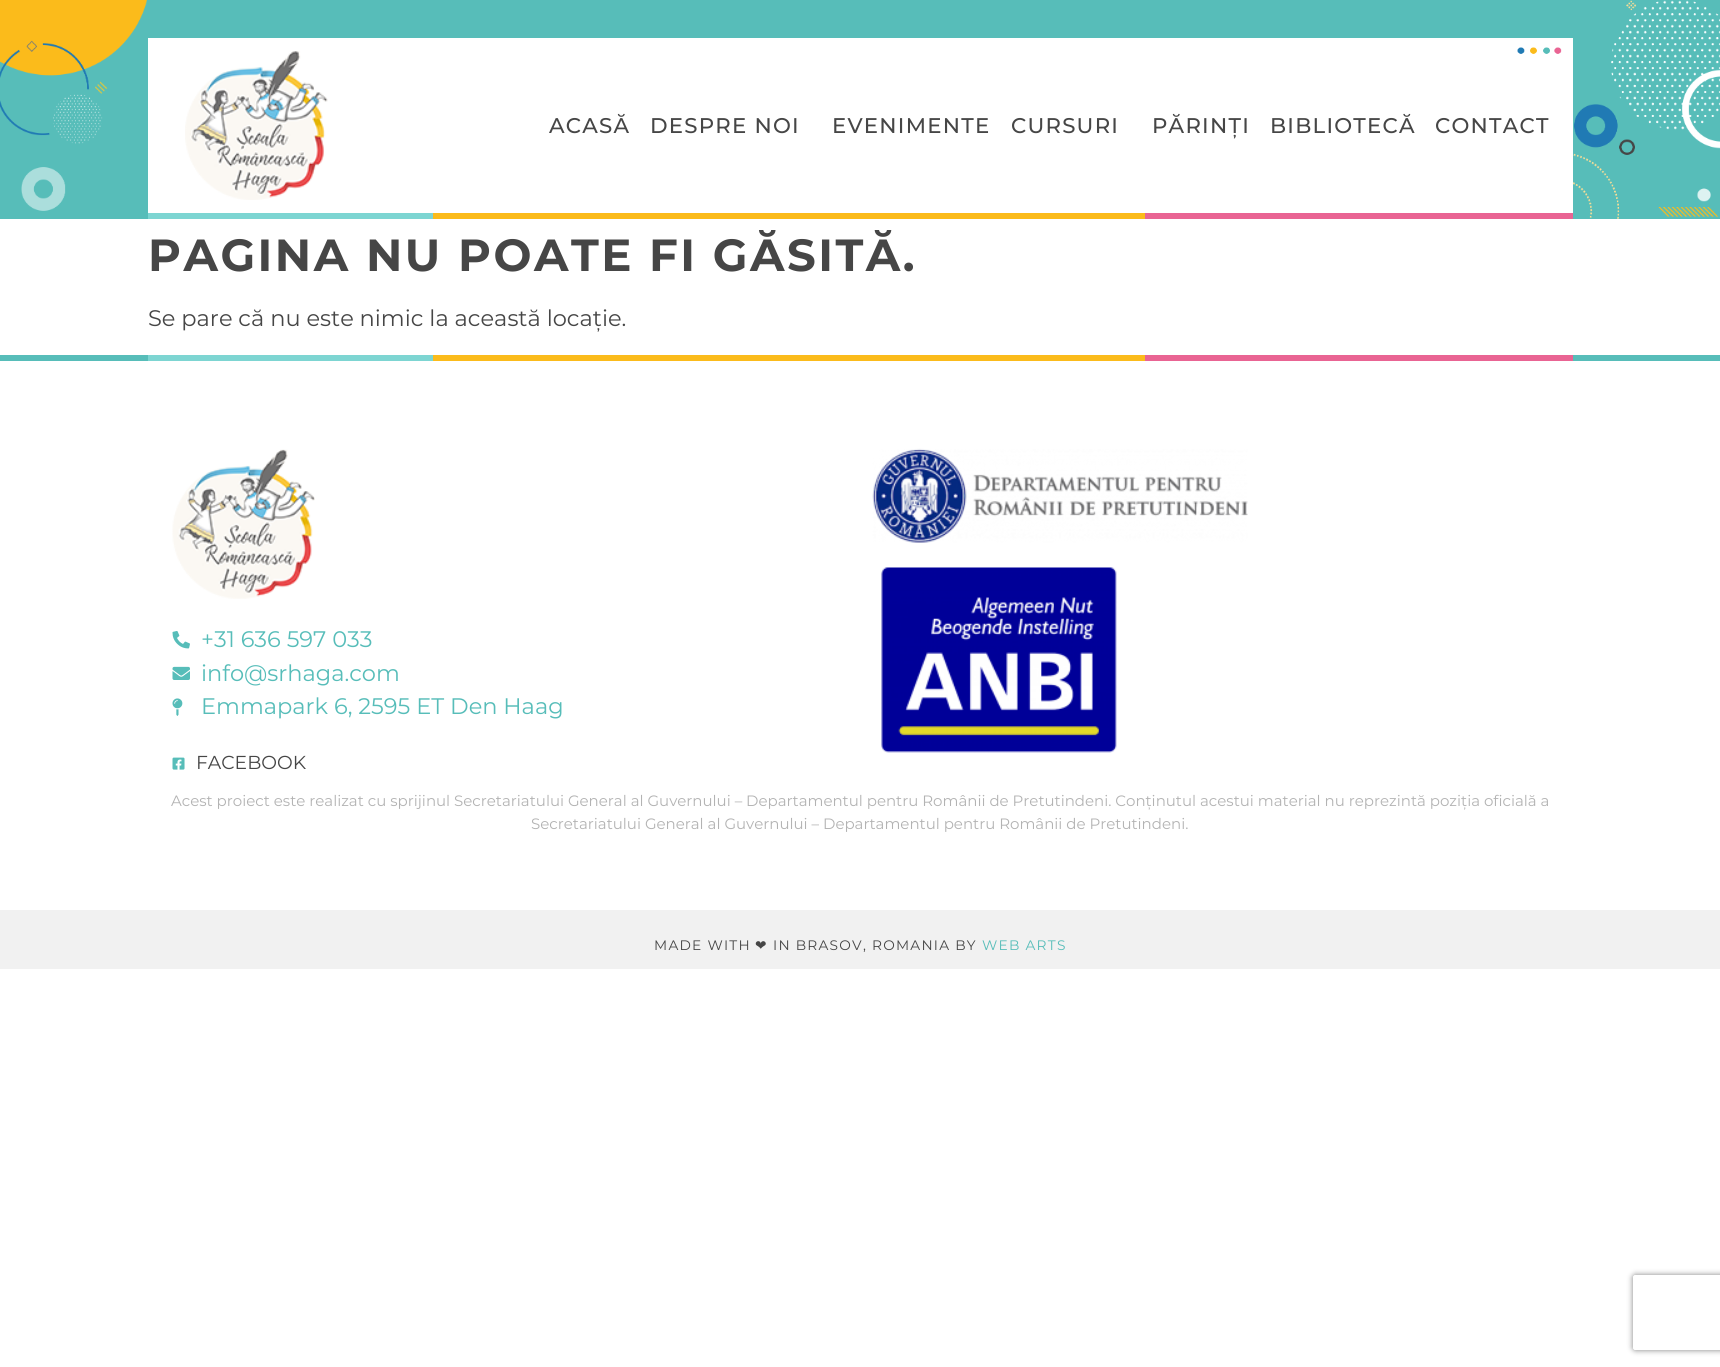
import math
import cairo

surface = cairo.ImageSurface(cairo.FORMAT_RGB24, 1720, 1367)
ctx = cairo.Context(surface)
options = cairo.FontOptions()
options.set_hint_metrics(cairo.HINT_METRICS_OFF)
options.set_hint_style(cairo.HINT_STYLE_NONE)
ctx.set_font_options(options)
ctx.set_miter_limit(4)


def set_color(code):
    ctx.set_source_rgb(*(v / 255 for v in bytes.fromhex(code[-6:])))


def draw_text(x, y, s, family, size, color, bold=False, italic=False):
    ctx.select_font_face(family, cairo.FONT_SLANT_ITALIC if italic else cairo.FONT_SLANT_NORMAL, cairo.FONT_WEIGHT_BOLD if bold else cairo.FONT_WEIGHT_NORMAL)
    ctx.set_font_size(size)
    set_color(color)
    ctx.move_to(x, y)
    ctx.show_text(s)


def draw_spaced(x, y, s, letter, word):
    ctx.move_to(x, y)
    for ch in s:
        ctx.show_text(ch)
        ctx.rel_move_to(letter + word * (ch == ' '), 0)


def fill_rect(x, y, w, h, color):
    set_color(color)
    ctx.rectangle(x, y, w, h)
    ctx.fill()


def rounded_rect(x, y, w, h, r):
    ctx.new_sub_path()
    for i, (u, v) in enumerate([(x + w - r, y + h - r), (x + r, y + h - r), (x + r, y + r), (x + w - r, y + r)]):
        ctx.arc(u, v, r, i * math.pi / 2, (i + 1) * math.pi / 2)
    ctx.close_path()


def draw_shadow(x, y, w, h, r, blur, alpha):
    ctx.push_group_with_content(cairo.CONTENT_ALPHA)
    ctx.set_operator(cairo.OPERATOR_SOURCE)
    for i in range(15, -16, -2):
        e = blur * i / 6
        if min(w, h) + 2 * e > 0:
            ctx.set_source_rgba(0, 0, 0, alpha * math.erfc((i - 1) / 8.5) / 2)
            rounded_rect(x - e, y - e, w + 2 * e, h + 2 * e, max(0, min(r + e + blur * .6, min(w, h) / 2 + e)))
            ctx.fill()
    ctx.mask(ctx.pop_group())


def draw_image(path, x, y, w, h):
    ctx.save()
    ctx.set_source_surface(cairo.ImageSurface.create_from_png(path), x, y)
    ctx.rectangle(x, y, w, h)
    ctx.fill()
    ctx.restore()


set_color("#ffffff")
ctx.paint()
fill_rect(0, 0, 1720, 219, "#57bdb9")
draw_image("assets/img1.png", 0, 0, 147, 211)
fill_rect(148, 38, 1425, 175, "#ffffff")
draw_image("assets/img2.png", 185, 51, 143, 149)
draw_image("assets/img3.png", 1517, 47, 45, 7)
ctx.select_font_face("Montserrat Medium")
ctx.set_font_size(21.25)
set_color("#464646")
draw_spaced(549, 133, "ACASĂ", 1.25, 0)
draw_spaced(650, 133, "DESPRE NOI", 1.25, 0)
draw_spaced(832, 133, "EVENIMENTE", 1.25, 0)
draw_spaced(1011, 133, "CURSURI", 1.25, 0)
draw_spaced(1152, 133, "PĂRINȚI", 1.25, 0)
draw_spaced(1270, 133, "BIBLIOTECĂ", 1.25, 0)
draw_spaced(1435, 133, "CONTACT", 1.25, 0)
fill_rect(148, 213, 285, 6, "#7dd5d2")
fill_rect(433, 213, 712, 6, "#fbbb1b")
fill_rect(1145, 213, 428, 6, "#e96493")
draw_image("assets/img4.png", 1573, 0, 147, 219)
ctx.select_font_face("Montserrat", cairo.FONT_SLANT_NORMAL, cairo.FONT_WEIGHT_BOLD)
ctx.set_font_size(45)
set_color("#464646")
draw_spaced(148, 271, "PAGINA NU POATE FI GĂSITĂ.", 2.5, 0)
draw_text(148, 326, "Se pare că nu este nimic la această locație.", "Montserrat", 22.5, "#464646")
fill_rect(0, 355, 1720, 6, "#57bdb9")
fill_rect(148, 355, 285, 6, "#7dd5d2")
fill_rect(433, 355, 712, 6, "#fbbb1b")
fill_rect(1145, 355, 428, 6, "#e96493")
draw_image("assets/img5.png", 172, 449, 143, 150)
draw_image("assets/img6.png", 172, 631, 18, 18)
draw_text(201, 647, "+31 636 597 033", "Montserrat", 22.5, "#57bdb9")
draw_image("assets/img7.png", 172, 666, 18, 14)
draw_text(201, 681, "info@srhaga.com", "Montserrat", 22.5, "#57bdb9")
draw_image("assets/img8.png", 172, 698, 11, 18)
draw_text(201, 714, "Emmapark 6, 2595 ET Den Haag", "Montserrat", 22.5, "#57bdb9")
draw_image("assets/img9.png", 172, 757, 13, 13)
draw_text(196, 769, "FACEBOOK", "Montserrat", 18.75, "#464646")
draw_image("assets/img10.png", 872, 448, 376, 95)
draw_image("assets/img11.png", 881, 567, 236, 186)
draw_text(171, 806, "Acest proiect este realizat cu sprijinul Secretariatului General al Guvernului – Departamentul pentru Românii de Pretutindeni. Conținutul acestui material nu reprezintă poziția oficială a", "Montserrat", 15, "#b3b3b3")
draw_text(531, 829, "Secretariatului General al Guvernului – Departamentul pentru Românii de Pretutindeni.", "Montserrat", 15, "#b3b3b3")
fill_rect(0, 910, 1720, 59, "#f1f1f1")
ctx.set_font_size(13.75)
set_color("#464646")
draw_spaced(654, 950, "MADE WITH", 1.25, 0)
ctx.select_font_face("DejaVu Sans")
draw_spaced(755, 950, "❤", 1.25, 0)
ctx.select_font_face("Montserrat")
draw_spaced(773, 950, "IN BRASOV, ROMANIA BY", 1.25, 0)
set_color("#57bdb9")
draw_spaced(982, 950, "WEB ARTS", 1.25, 0)
ctx.save()
ctx.set_fill_rule(cairo.FILL_RULE_EVEN_ODD)
ctx.new_path()
ctx.move_to(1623, 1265)
ctx.line_to(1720, 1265)
ctx.line_to(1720, 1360)
ctx.line_to(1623, 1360)
ctx.close_path()
ctx.move_to(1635.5, 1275)
ctx.line_to(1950.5, 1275)
ctx.curve_to(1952, 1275, 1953, 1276, 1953, 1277.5)
ctx.line_to(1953, 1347.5)
ctx.curve_to(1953, 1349, 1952, 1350, 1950.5, 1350)
ctx.line_to(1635.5, 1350)
ctx.curve_to(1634, 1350, 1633, 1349, 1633, 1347.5)
ctx.line_to(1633, 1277.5)
ctx.curve_to(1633, 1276, 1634, 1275, 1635.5, 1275)
ctx.close_path()
ctx.clip()
set_color("#808080")
draw_shadow(1633, 1275, 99, 75, 2.5, 3, 1)
ctx.restore()
surface.write_to_png("output.png")
